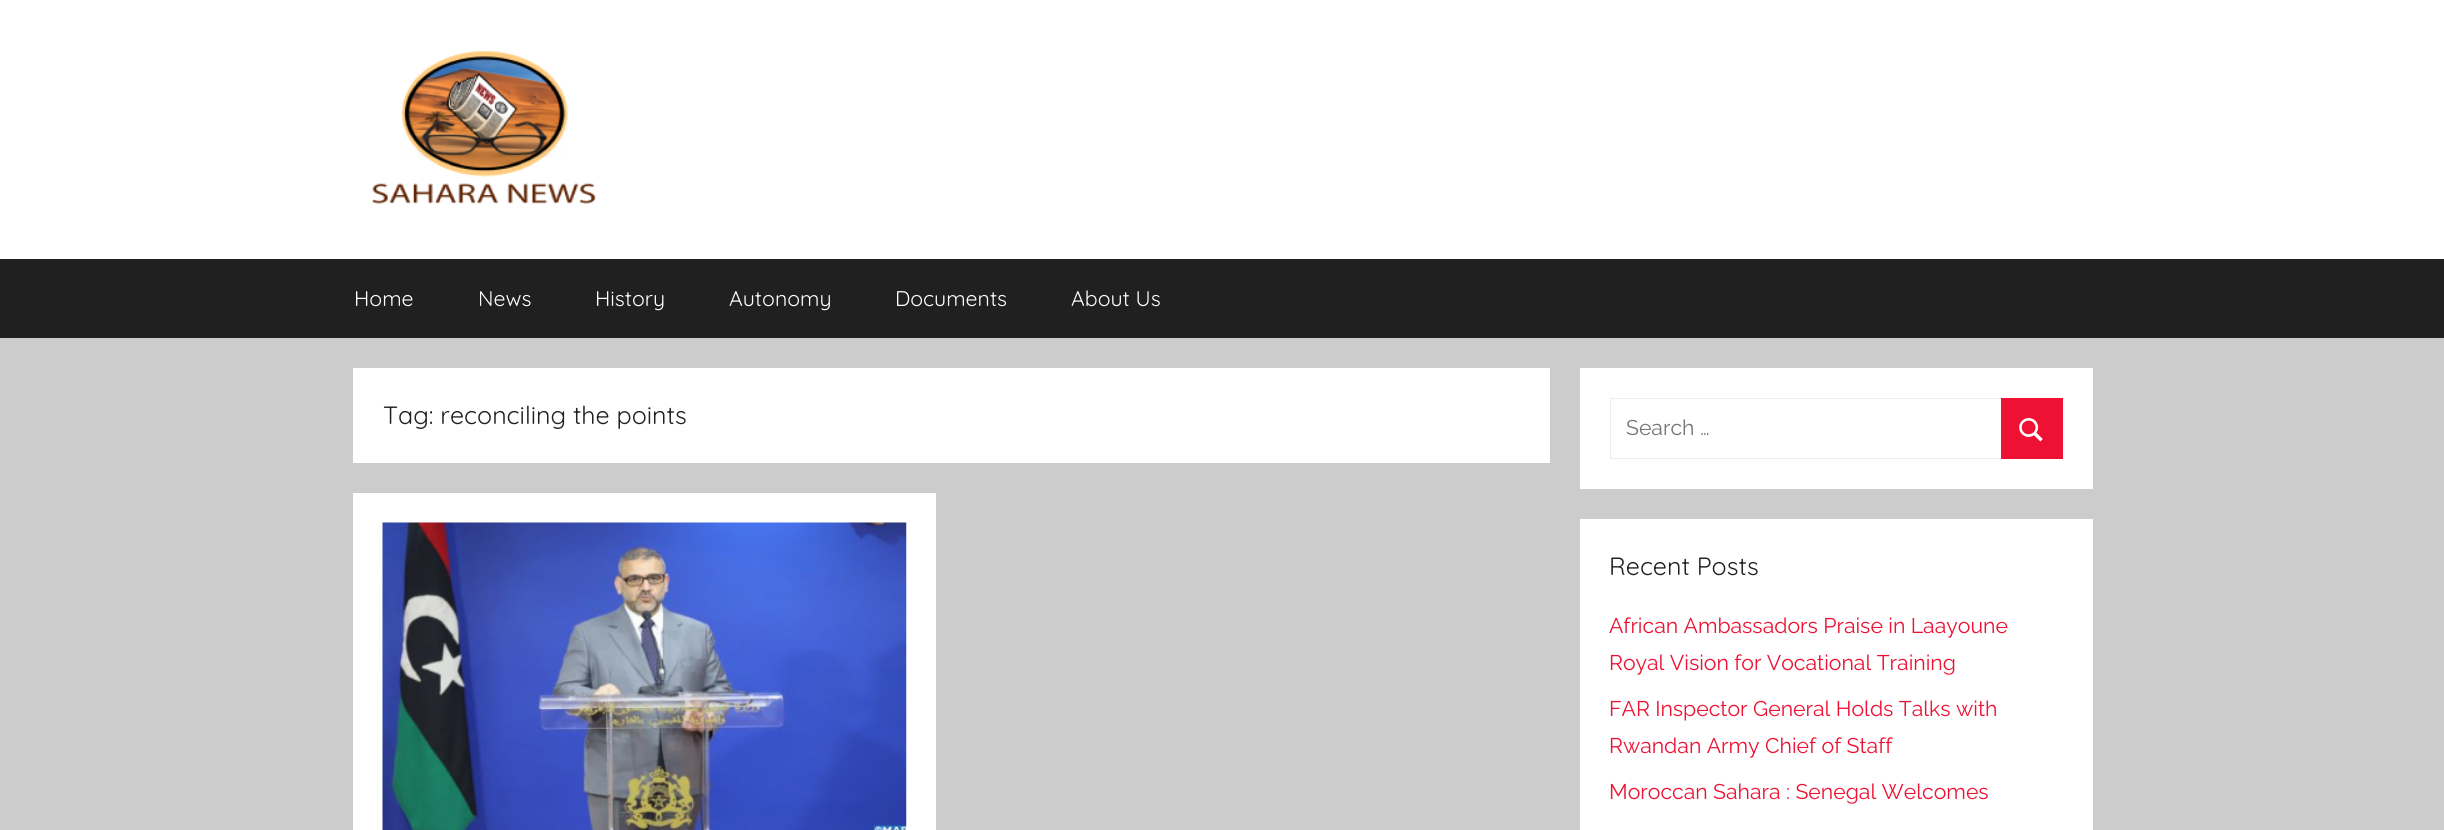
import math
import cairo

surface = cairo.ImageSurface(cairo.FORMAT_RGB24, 2444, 830)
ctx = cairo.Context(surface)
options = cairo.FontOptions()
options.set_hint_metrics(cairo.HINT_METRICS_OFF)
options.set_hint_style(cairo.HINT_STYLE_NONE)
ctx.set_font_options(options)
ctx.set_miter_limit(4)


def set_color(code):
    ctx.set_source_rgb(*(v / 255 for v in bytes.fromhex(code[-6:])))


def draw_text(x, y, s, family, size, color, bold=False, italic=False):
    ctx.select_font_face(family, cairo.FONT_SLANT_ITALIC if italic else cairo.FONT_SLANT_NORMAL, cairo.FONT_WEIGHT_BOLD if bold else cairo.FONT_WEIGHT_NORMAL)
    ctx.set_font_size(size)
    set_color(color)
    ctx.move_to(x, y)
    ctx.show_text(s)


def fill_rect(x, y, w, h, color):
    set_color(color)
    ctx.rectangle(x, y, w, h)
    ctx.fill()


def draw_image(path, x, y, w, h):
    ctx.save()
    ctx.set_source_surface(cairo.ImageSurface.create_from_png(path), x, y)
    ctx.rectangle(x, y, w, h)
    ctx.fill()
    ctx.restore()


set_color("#cccccc")
ctx.paint()
fill_rect(0, 0, 2444, 259, "#ffffff")
draw_image("assets/img1.png", 372, 51, 224, 153)
fill_rect(0, 259, 2444, 79, "#202020")
draw_text(354, 306, "Home", "Quicksand Light", 21.25, "#ffffff")
draw_text(478, 306, "News", "Quicksand Light", 21.25, "#ffffff")
draw_text(595, 306, "History", "Quicksand Light", 21.25, "#ffffff")
draw_text(729, 306, "Autonomy", "Quicksand Light", 21.25, "#ffffff")
draw_text(895, 306, "Documents", "Quicksand Light", 21.25, "#ffffff")
draw_text(1071, 306, "About Us", "Quicksand Light", 21.25, "#ffffff")
fill_rect(353, 368, 1197, 95, "#ffffff")
draw_text(383, 424, "Tag: reconciling the points", "Quicksand Light", 25, "#202020")
fill_rect(353, 493, 583, 337, "#ffffff")
draw_image("assets/img2.png", 382, 522, 525, 308)
fill_rect(1580, 368, 513, 121, "#ffffff")
ctx.rectangle(1610.5, 398.5, 452, 60)
set_color("#ececec")
ctx.set_line_width(1)
ctx.stroke()
draw_text(1626, 435, "Search …", "Raleway Thin", 21.25, "#757575")
fill_rect(2001, 398, 62, 61, "#ee1133")
draw_image("assets/img3.png", 2019, 418, 24, 24)
fill_rect(1580, 519, 513, 311, "#ffffff")
draw_text(1609, 575, "Recent Posts", "Quicksand Light", 25, "#202020")
draw_text(1609, 633, "African Ambassadors Praise in Laayoune", "Raleway Thin", 21.25, "#ee1133")
draw_text(1609, 670, "Royal Vision for Vocational Training", "Raleway Thin", 21.25, "#ee1133")
draw_text(1609, 716, "FAR Inspector General Holds Talks with", "Raleway Thin", 21.25, "#ee1133")
draw_text(1609, 753, "Rwandan Army Chief of Staff", "Raleway Thin", 21.25, "#ee1133")
draw_text(1609, 799, "Moroccan Sahara : Senegal Welcomes", "Raleway Thin", 21.25, "#ee1133")
surface.write_to_png("output.png")
